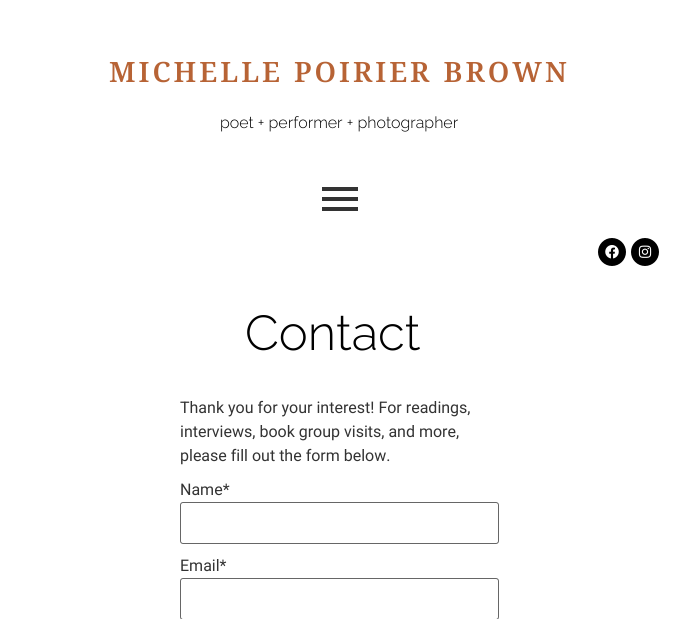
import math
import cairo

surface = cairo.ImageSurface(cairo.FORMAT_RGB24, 679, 619)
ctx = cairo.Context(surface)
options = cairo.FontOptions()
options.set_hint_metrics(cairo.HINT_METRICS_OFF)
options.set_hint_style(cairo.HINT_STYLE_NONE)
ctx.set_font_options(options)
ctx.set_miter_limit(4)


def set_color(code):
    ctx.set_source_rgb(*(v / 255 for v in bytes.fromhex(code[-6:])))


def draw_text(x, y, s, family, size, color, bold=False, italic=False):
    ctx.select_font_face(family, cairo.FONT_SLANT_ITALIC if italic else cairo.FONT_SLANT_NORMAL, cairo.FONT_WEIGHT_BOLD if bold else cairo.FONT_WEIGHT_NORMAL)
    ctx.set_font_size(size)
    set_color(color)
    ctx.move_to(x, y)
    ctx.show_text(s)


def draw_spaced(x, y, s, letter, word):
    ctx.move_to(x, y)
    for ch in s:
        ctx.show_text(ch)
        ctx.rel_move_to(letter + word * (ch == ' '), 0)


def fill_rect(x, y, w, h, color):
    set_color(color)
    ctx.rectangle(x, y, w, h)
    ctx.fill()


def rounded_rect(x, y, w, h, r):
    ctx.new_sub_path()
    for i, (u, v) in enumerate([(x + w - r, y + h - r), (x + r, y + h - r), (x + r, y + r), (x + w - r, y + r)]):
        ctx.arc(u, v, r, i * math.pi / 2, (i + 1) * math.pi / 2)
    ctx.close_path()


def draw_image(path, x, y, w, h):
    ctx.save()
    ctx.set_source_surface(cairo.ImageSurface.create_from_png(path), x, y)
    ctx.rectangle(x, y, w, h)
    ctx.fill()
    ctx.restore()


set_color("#ffffff")
ctx.paint()
ctx.select_font_face("Noto Serif Telugu SemiBold")
ctx.set_font_size(28)
set_color("#b76335")
draw_spaced(109, 82, "MICHELLE POIRIER BROWN", 3, 0)
draw_text(220, 128, "poet + performer + photographer", "Raleway Light", 16, "#000000")
fill_rect(322, 187, 36, 4, "#333333")
fill_rect(322, 197, 36, 4, "#333333")
fill_rect(322, 207, 36, 4, "#333333")
set_color("#000000")
ctx.new_path()
ctx.arc(612, 252, 14, 0, 2 * math.pi)
ctx.fill()
draw_image("assets/img1.png", 605, 245, 14, 14)
ctx.arc(645, 252, 14, 0, 2 * math.pi)
ctx.fill()
draw_image("assets/img2.png", 638, 245, 14, 13)
draw_text(245, 350, "Contact", "Raleway Light", 49, "#000000")
draw_text(180, 413, "Thank you for your interest! For readings,", "Roboto", 16, "#333333")
draw_text(180, 437, "interviews, book group visits, and more,", "Roboto", 16, "#333333")
draw_text(180, 461, "please fill out the form below.", "Roboto", 16, "#333333")
draw_text(180, 495, "Name*", "Roboto", 16, "#333333")
rounded_rect(180.5, 502.5, 318, 41, 2.5)
set_color("#666666")
ctx.set_line_width(1)
ctx.stroke()
draw_text(180, 571, "Email*", "Roboto", 16, "#333333")
rounded_rect(180.5, 578.5, 318, 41, 2.5)
set_color("#666666")
ctx.stroke()
surface.write_to_png("output.png")
